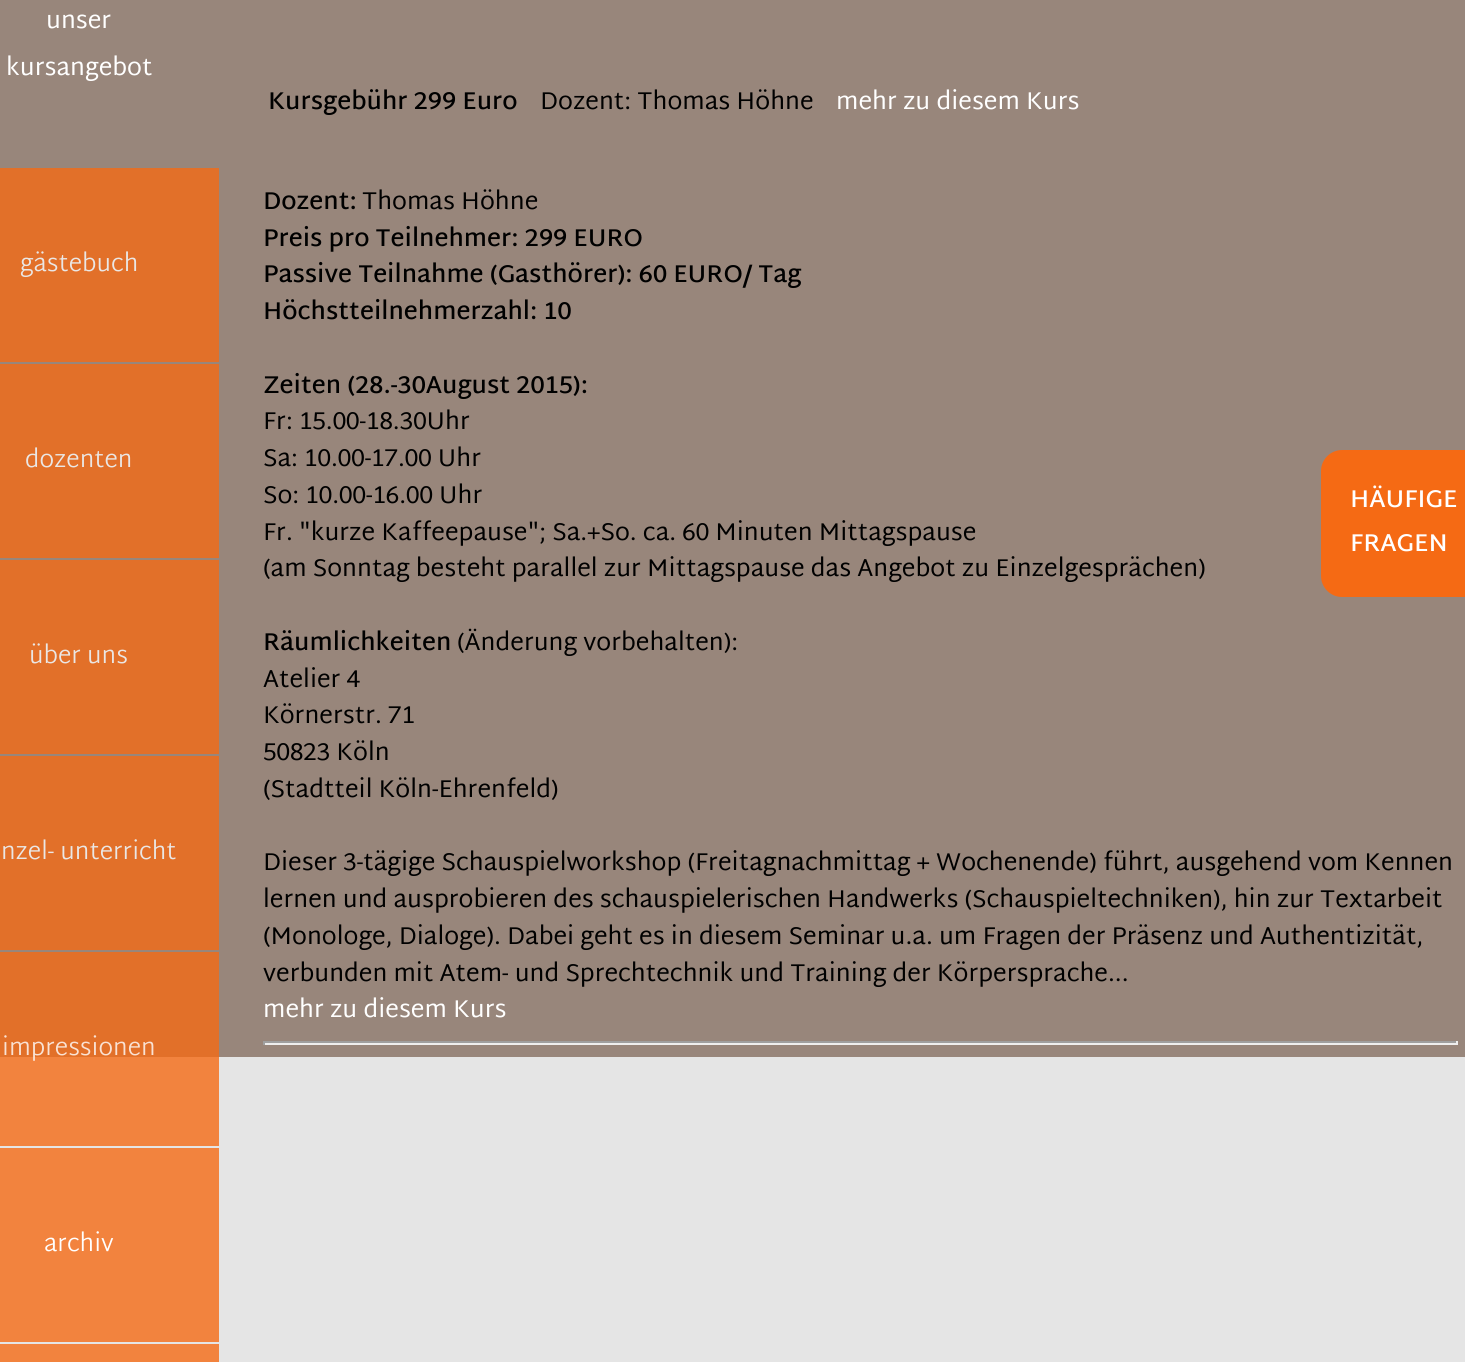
import math
import cairo

surface = cairo.ImageSurface(cairo.FORMAT_RGB24, 1465, 1362)
ctx = cairo.Context(surface)
options = cairo.FontOptions()
options.set_hint_metrics(cairo.HINT_METRICS_OFF)
options.set_hint_style(cairo.HINT_STYLE_NONE)
ctx.set_font_options(options)
ctx.set_miter_limit(4)


def set_color(code):
    ctx.set_source_rgb(*(v / 255 for v in bytes.fromhex(code[-6:])))


def draw_text(x, y, s, family, size, color, bold=False, italic=False):
    ctx.select_font_face(family, cairo.FONT_SLANT_ITALIC if italic else cairo.FONT_SLANT_NORMAL, cairo.FONT_WEIGHT_BOLD if bold else cairo.FONT_WEIGHT_NORMAL)
    ctx.set_font_size(size)
    set_color(color)
    ctx.move_to(x, y)
    ctx.show_text(s)


def fill_rect(x, y, w, h, color):
    set_color(color)
    ctx.rectangle(x, y, w, h)
    ctx.fill()


set_color("#e5e5e5")
ctx.paint()
fill_rect(0, 1057, 219, 89, "#f2833e")
fill_rect(0, 0, 1465, 1057, "#98867b")
fill_rect(0, 952, 219, 105, "#e27029")
draw_text(46, 28, "unser", "Martel Sans", 24.5, "#ffffff")
draw_text(6, 75, "kursangebot", "Martel Sans", 24.5, "#ffffff")
fill_rect(0, 168, 219, 194, "#e27029")
draw_text(20, 271, "gästebuch", "Martel Sans Light", 24.5, "#eae7e5")
fill_rect(0, 364, 219, 194, "#e27029")
draw_text(25, 467, "dozenten", "Martel Sans Light", 24.5, "#eae7e5")
fill_rect(0, 560, 219, 194, "#e27029")
draw_text(29, 663, "über uns", "Martel Sans Light", 24.5, "#eae7e5")
fill_rect(0, 756, 219, 194, "#e27029")
draw_text(1, 859, "nzel- unterricht", "Martel Sans Light", 24.5, "#eae7e5")
draw_text(2, 1055, "impressionen", "Martel Sans Light", 24.5, "#f9e2d4")
fill_rect(0, 1148, 219, 194, "#f2833e")
draw_text(44, 1251, "archiv", "Martel Sans Light", 24.5, "#ffffff")
fill_rect(0, 1344, 219, 18, "#f2833e")
draw_text(268, 109, "Kursgebühr 299 Euro", "Martel Sans SemiBold", 24.5, "#000000")
draw_text(540, 109, "Dozent: Thomas Höhne", "Martel Sans", 24.5, "#000000")
draw_text(836, 109, "mehr zu diesem Kurs", "Martel Sans", 24.5, "#ffffff")
draw_text(263, 209, "Dozent:", "Martel Sans SemiBold", 24.5, "#000000")
draw_text(362, 209, "Thomas Höhne", "Martel Sans", 24.5, "#000000")
draw_text(263, 246, "Preis pro Teilnehmer: 299 EURO", "Martel Sans SemiBold", 24.5, "#000000")
draw_text(263, 282, "Passive Teilnahme (Gasthörer): 60 EURO/ Tag", "Martel Sans SemiBold", 24.5, "#000000")
draw_text(263, 319, "Höchstteilnehmerzahl: 10", "Martel Sans SemiBold", 24.5, "#000000")
draw_text(263, 393, "Zeiten (28.-30August 2015):", "Martel Sans SemiBold", 24.5, "#000000")
draw_text(263, 429, "Fr: 15.00-18.30Uhr", "Martel Sans", 24.5, "#000000")
draw_text(263, 466, "Sa: 10.00-17.00 Uhr", "Martel Sans", 24.5, "#000000")
draw_text(263, 503, "So: 10.00-16.00 Uhr", "Martel Sans", 24.5, "#000000")
draw_text(263, 540, "Fr. \"kurze Kaffeepause\"; Sa.+So. ca. 60 Minuten Mittagspause", "Martel Sans", 24.5, "#000000")
draw_text(263, 576, "(am Sonntag besteht parallel zur Mittagspause das Angebot zu Einzelgesprächen)", "Martel Sans", 24.5, "#000000")
draw_text(263, 650, "Räumlichkeiten", "Martel Sans SemiBold", 24.5, "#000000")
draw_text(457, 650, "(Änderung vorbehalten):", "Martel Sans", 24.5, "#000000")
draw_text(263, 687, "Atelier 4", "Martel Sans", 24.5, "#000000")
draw_text(263, 723, "Körnerstr. 71", "Martel Sans", 24.5, "#000000")
draw_text(263, 760, "50823 Köln", "Martel Sans", 24.5, "#000000")
draw_text(263, 797, "(Stadtteil Köln-Ehrenfeld)", "Martel Sans", 24.5, "#000000")
draw_text(263, 870, "Dieser 3-tägige Schauspielworkshop (Freitagnachmittag + Wochenende) führt, ausgehend vom Kennen", "Martel Sans", 24.5, "#000000")
draw_text(263, 907, "lernen und ausprobieren des schauspielerischen Handwerks (Schauspieltechniken), hin zur Textarbeit", "Martel Sans", 24.5, "#000000")
draw_text(263, 944, "(Monologe, Dialoge). Dabei geht es in diesem Seminar u.a. um Fragen der Präsenz und Authentizität,", "Martel Sans", 24.5, "#000000")
draw_text(263, 981, "verbunden mit Atem- und Sprechtechnik und Training der Körpersprache...", "Martel Sans", 24.5, "#000000")
draw_text(263, 1017, "mehr zu diesem Kurs", "Martel Sans", 24.5, "#ffffff")
fill_rect(263, 1041, 1195, 2, "#9f9f9f")
fill_rect(1456, 1041, 2, 4, "#eeeeee")
fill_rect(263, 1043, 1195, 2, "#eeeeee")
fill_rect(263, 1041, 2, 4, "#9f9f9f")
set_color("#f56a14")
ctx.new_path()
ctx.move_to(1342, 450)
ctx.line_to(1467, 450)
ctx.line_to(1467, 597)
ctx.line_to(1342, 597)
ctx.curve_to(1330.5, 597, 1321, 587.5, 1321, 576)
ctx.line_to(1321, 471)
ctx.curve_to(1321, 459.5, 1330.5, 450, 1342, 450)
ctx.close_path()
ctx.fill()
draw_text(1350, 507, "HÄUFIGE", "Martel Sans SemiBold", 24.5, "#ffffff")
draw_text(1350, 551, "FRAGEN", "Martel Sans SemiBold", 24.5, "#ffffff")
surface.write_to_png("output.png")
